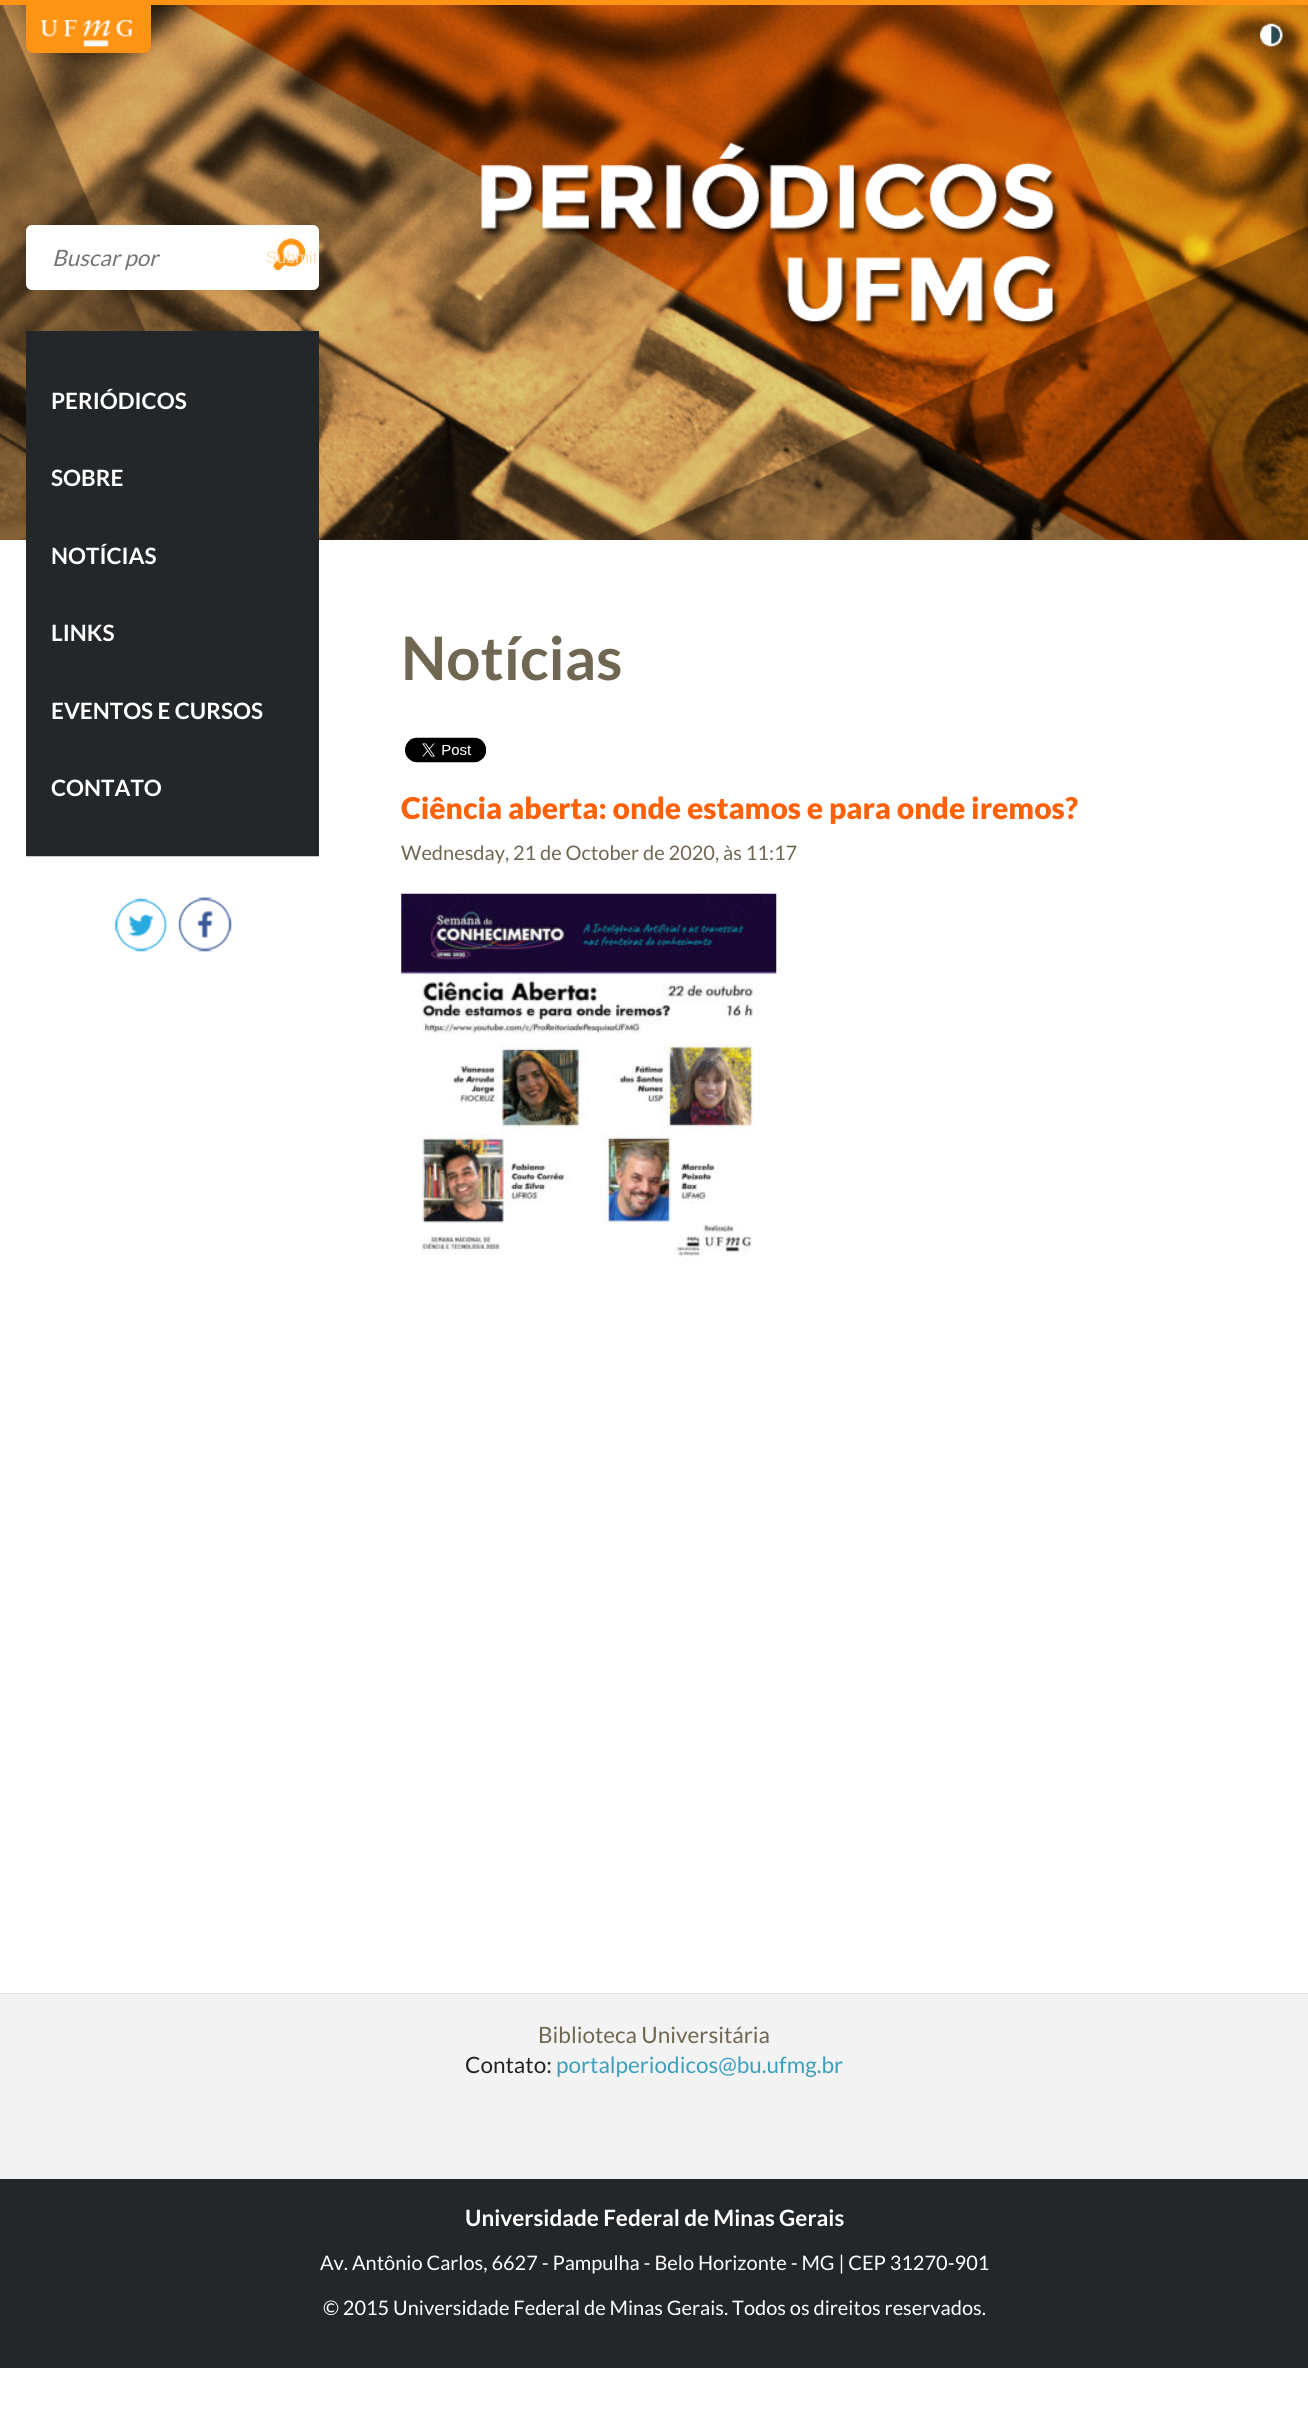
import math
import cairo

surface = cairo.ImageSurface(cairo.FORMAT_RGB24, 1308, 2414)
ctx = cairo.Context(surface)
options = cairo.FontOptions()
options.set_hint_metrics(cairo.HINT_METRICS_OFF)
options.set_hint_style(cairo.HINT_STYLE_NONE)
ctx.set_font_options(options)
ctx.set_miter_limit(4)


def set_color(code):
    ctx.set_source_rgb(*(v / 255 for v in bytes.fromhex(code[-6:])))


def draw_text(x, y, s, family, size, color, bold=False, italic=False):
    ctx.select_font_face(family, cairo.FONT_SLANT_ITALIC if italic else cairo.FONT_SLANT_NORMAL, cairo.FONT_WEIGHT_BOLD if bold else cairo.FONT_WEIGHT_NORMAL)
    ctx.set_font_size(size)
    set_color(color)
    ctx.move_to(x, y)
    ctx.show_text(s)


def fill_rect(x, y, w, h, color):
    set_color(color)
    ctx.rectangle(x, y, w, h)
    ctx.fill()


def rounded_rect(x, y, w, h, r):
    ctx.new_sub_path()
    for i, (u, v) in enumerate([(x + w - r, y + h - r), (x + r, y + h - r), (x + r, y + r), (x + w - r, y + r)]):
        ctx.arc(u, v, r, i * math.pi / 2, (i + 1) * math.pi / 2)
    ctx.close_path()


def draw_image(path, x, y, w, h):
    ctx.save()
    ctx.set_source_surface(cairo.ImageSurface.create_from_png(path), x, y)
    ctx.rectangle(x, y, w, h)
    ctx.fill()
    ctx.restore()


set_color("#ffffff")
ctx.paint()
fill_rect(0, 0, 1308, 5, "#ff9313")
draw_image("assets/img3.png", 0, 5, 1308, 535)
ctx.new_path()
ctx.move_to(26, 0)
ctx.line_to(151, 0)
ctx.line_to(151, 45)
ctx.curve_to(151, 49.5, 147.5, 53, 143, 53)
ctx.line_to(34, 53)
ctx.curve_to(29.5, 53, 26, 49.5, 26, 45)
ctx.close_path()
ctx.fill()
draw_image("assets/img1.png", 41, 20, 92, 27)
draw_image("assets/img2.png", 1259, 23, 24, 24)
draw_image("assets/img4.png", 481, 142, 580, 189)
set_color("#ffffff")
rounded_rect(26, 225, 293, 65, 6)
ctx.fill()
draw_image("assets/img5.png", 273, 238, 32, 32)
draw_text(52, 266, "Buscar por", "Lato", 22.5, "#757575", italic=True)
ctx.save()
ctx.rectangle(259, 228, 57, 60)
ctx.clip()
draw_text(266, 263, "Submit", "Liberation Sans", 16.5, "#ffdeb7")
ctx.restore()
fill_rect(26, 331, 293, 525, "#242729")
draw_image("assets/img6.png", 26, 856, 293, 1)
draw_text(51, 409, "PERIÓDICOS", "Lato", 22.5, "#ffffff", bold=True)
draw_text(51, 486, "SOBRE", "Lato", 22.5, "#ffffff", bold=True)
draw_text(51, 564, "NOTÍCIAS", "Lato", 22.5, "#ffffff", bold=True)
draw_text(51, 641, "LINKS", "Lato", 22.5, "#ffffff", bold=True)
draw_text(51, 719, "EVENTOS E CURSOS", "Lato", 22.5, "#ffffff", bold=True)
draw_text(51, 796, "CONTATO", "Lato", 22.5, "#ffffff", bold=True)
draw_image("assets/img7.png", 114, 898, 53, 54)
draw_image("assets/img8.png", 178, 897, 54, 55)
draw_text(401, 680, "Notícias", "Lato", 60, "#706753", bold=True)
draw_image("assets/img9.png", 405, 737, 82, 26)
draw_text(401, 819, "Ciência aberta: onde estamos e para onde iremos?", "Lato Black", 30, "#ff610b")
draw_text(401, 860, "Wednesday, 21 de October de 2020, às 11:17", "Lato", 20, "#706753")
draw_image("assets/img10.png", 401, 893, 376, 371)
fill_rect(0, 1994, 1308, 185, "#f3f3f3")
fill_rect(0, 1993, 1308, 1, "#e6e3dc")
draw_text(538, 2043, "Biblioteca Universitária", "Lato", 22.5, "#706753")
draw_text(465, 2073, "Contato:", "Lato", 22.5, "#222222")
draw_text(556, 2073, "portalperiodicos@bu.ufmg.br", "Lato", 22.5, "#3ba0bc")
fill_rect(0, 2179, 1308, 189, "#242729")
draw_text(465, 2226, "Universidade Federal de Minas Gerais", "Lato", 22.5, "#ffffff", bold=True)
draw_text(320, 2270, "Av. Antônio Carlos, 6627 - Pampulha - Belo Horizonte - MG | CEP 31270-901", "Lato", 20, "#ffffff")
draw_text(323, 2315, "© 2015 Universidade Federal de Minas Gerais. Todos os direitos reservados.", "Lato", 20, "#ffffff")
surface.write_to_png("output.png")
